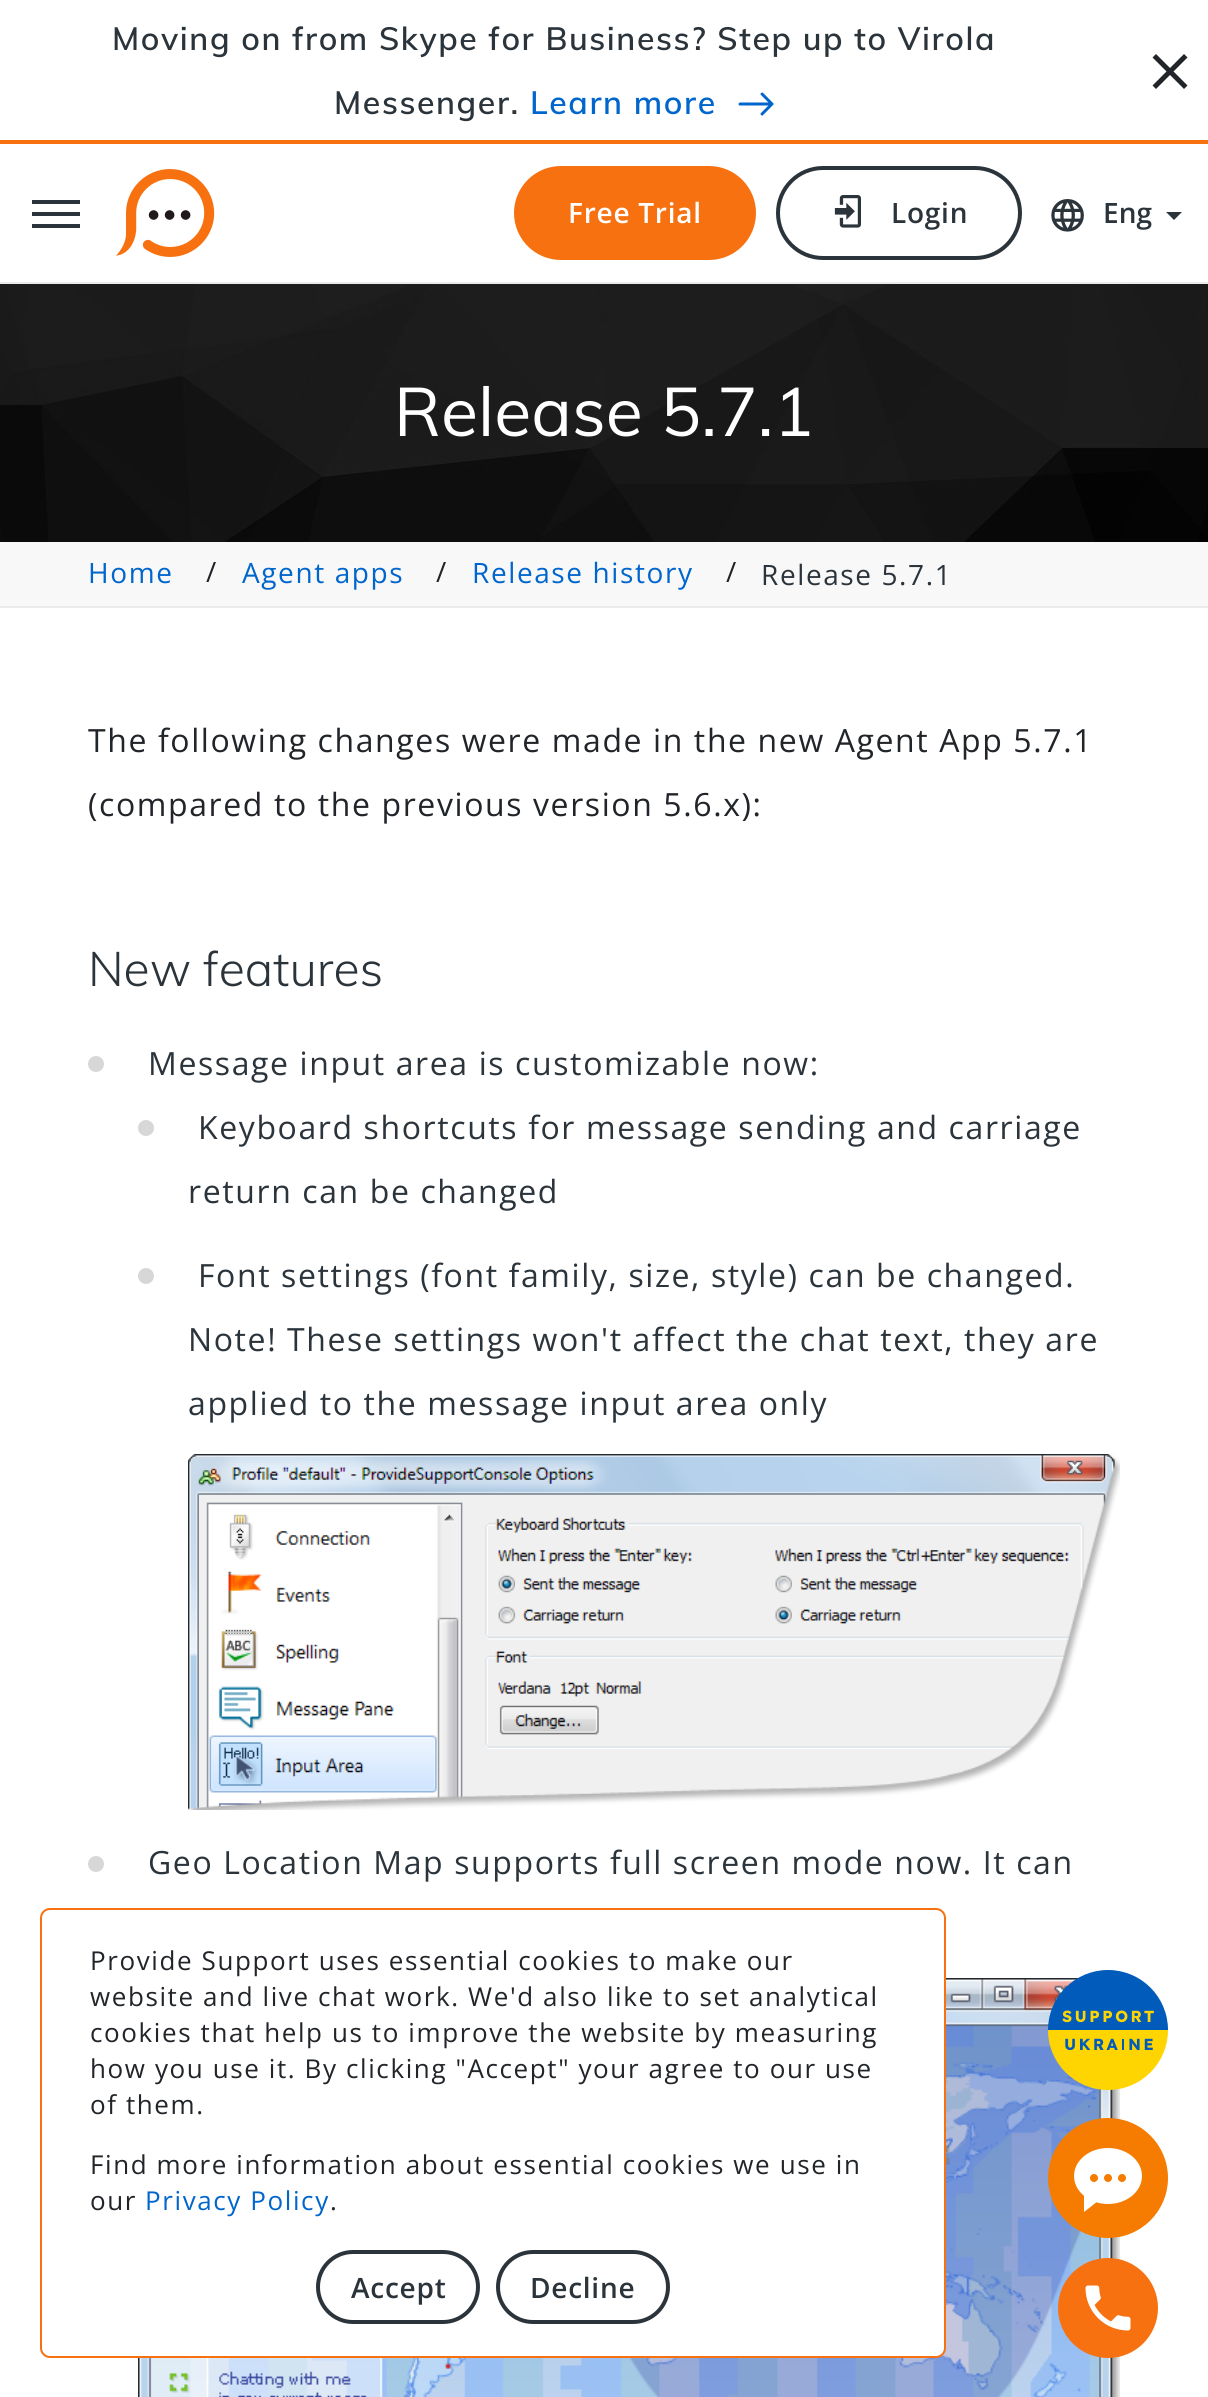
import math
import cairo

surface = cairo.ImageSurface(cairo.FORMAT_RGB24, 1208, 2397)
ctx = cairo.Context(surface)
options = cairo.FontOptions()
options.set_hint_metrics(cairo.HINT_METRICS_OFF)
options.set_hint_style(cairo.HINT_STYLE_NONE)
ctx.set_font_options(options)
ctx.set_miter_limit(4)


def set_color(code):
    ctx.set_source_rgb(*(v / 255 for v in bytes.fromhex(code[-6:])))


def draw_text(x, y, s, family, size, color, bold=False, italic=False):
    ctx.select_font_face(family, cairo.FONT_SLANT_ITALIC if italic else cairo.FONT_SLANT_NORMAL, cairo.FONT_WEIGHT_BOLD if bold else cairo.FONT_WEIGHT_NORMAL)
    ctx.set_font_size(size)
    set_color(color)
    ctx.move_to(x, y)
    ctx.show_text(s)


def draw_spaced(x, y, s, letter, word):
    ctx.move_to(x, y)
    for ch in s:
        ctx.show_text(ch)
        ctx.rel_move_to(letter + word * (ch == ' '), 0)


def fill_rect(x, y, w, h, color):
    set_color(color)
    ctx.rectangle(x, y, w, h)
    ctx.fill()


def rounded_rect(x, y, w, h, r):
    ctx.new_sub_path()
    for i, (u, v) in enumerate([(x + w - r, y + h - r), (x + r, y + h - r), (x + r, y + r), (x + w - r, y + r)]):
        ctx.arc(u, v, r, i * math.pi / 2, (i + 1) * math.pi / 2)
    ctx.close_path()


def draw_image(path, x, y, w, h):
    ctx.save()
    ctx.set_source_surface(cairo.ImageSurface.create_from_png(path), x, y)
    ctx.rectangle(x, y, w, h)
    ctx.fill()
    ctx.restore()


set_color("#ffffff")
ctx.paint()
fill_rect(0, 140, 1208, 4, "#f77110")
ctx.select_font_face("Muli SemiBold")
ctx.set_font_size(32)
set_color("#2c343b")
draw_spaced(112, 50, "Moving on from Skype for Business? Step up to Virola", 1.6, 0)
draw_spaced(334, 114, "Messenger.", 1.6, 0)
set_color("#0066cc")
draw_spaced(530, 114, "Learn more", 1.6, 0)
draw_image("assets/img1.png", 738, 92, 36, 24)
set_color("#212529")
ctx.new_path()
ctx.move_to(1187.5, 57.5)
ctx.line_to(1184, 54)
ctx.line_to(1170, 68)
ctx.line_to(1156, 54)
ctx.line_to(1152.5, 57.5)
ctx.line_to(1166.5, 71.5)
ctx.line_to(1152.5, 85.5)
ctx.line_to(1156, 89)
ctx.line_to(1170, 75)
ctx.line_to(1184, 89)
ctx.line_to(1187.5, 85.5)
ctx.line_to(1173.5, 71.5)
ctx.close_path()
ctx.fill()
fill_rect(0, 282, 1208, 2, "#ebebeb")
fill_rect(32, 212, 48, 4, "#2c343b")
fill_rect(32, 200, 48, 4, "#2c343b")
fill_rect(32, 224, 48, 4, "#2c343b")
draw_image("assets/img2.png", 116, 169, 99, 88)
set_color("#f77110")
rounded_rect(516, 168, 238, 90, 45)
ctx.fill_preserve()
ctx.set_line_width(4)
ctx.stroke()
ctx.select_font_face("Open Sans SemiBold")
ctx.set_font_size(28)
set_color("#ffffff")
draw_spaced(568, 223, "Free Trial", 0.75, 0)
rounded_rect(778, 168, 242, 90, 45)
set_color("#2c343b")
ctx.stroke()
draw_image("assets/img3.png", 834, 195, 27, 33)
draw_spaced(891, 223, "Login", 0.75, 0)
draw_image("assets/img4.png", 1051, 199, 33, 33)
draw_text(1103, 223, "Eng", "Open Sans SemiBold", 28, "#2c343b")
ctx.new_path()
ctx.move_to(1166, 212)
ctx.line_to(1182, 212)
ctx.line_to(1174, 220)
ctx.close_path()
ctx.fill()
draw_image("assets/img5.png", 0, 284, 1208, 258)
draw_text(394, 436, "Release 5.7.1", "Muli", 68, "#ffffff")
fill_rect(0, 542, 1208, 64, "#f9f8f8")
ctx.select_font_face("Open Sans")
ctx.set_font_size(28)
set_color("#0066cc")
draw_spaced(88, 583, "Home", 1.6, 0)
set_color("#212529")
draw_spaced(206, 582, "/", 1.6, 0)
set_color("#0066cc")
draw_spaced(242, 583, "Agent apps", 1.6, 0)
set_color("#212529")
draw_spaced(436, 582, "/", 1.6, 0)
set_color("#0066cc")
draw_spaced(472, 583, "Release history", 1.6, 0)
set_color("#212529")
draw_spaced(726, 582, "/", 1.6, 0)
set_color("#2c343b")
draw_spaced(761, 585, "Release 5.7.1", 1.6, 0)
fill_rect(0, 606, 1208, 2, "#ebebeb")
ctx.set_font_size(32)
set_color("#212529")
draw_spaced(88, 752, "The following changes were made in the new Agent App 5.7.1", 1.6, 0)
draw_spaced(88, 816, "(compared to the previous version 5.6.x):", 1.6, 0)
draw_text(88, 986, "New features", "Muli Light", 48, "#2c343b")
set_color("#d7d7d7")
ctx.new_path()
ctx.arc(96, 1064, 8, 0, 2 * math.pi)
ctx.fill()
ctx.select_font_face("Open Sans")
ctx.set_font_size(32)
set_color("#2c343b")
draw_spaced(148, 1075, "Message input area is customizable now:", 1.6, 0)
set_color("#d7d7d7")
ctx.new_path()
ctx.arc(146, 1128, 8, 0, 2 * math.pi)
ctx.fill()
set_color("#2c343b")
draw_spaced(198, 1139, "Keyboard shortcuts for message sending and carriage", 1.6, 0)
draw_spaced(188, 1203, "return can be changed", 1.6, 0)
set_color("#d7d7d7")
ctx.new_path()
ctx.arc(146, 1276, 8, 0, 2 * math.pi)
ctx.fill()
set_color("#2c343b")
draw_spaced(198, 1287, "Font settings (font family, size, style) can be changed.", 1.6, 0)
draw_spaced(188, 1351, "Note! These settings won't affect the chat text, they are", 1.6, 0)
draw_spaced(188, 1415, "applied to the message input area only", 1.6, 0)
draw_image("assets/img6.png", 188, 1454, 932, 356)
set_color("#d7d7d7")
ctx.arc(96, 1864, 8, 0, 2 * math.pi)
ctx.fill()
set_color("#2c343b")
draw_spaced(148, 1874, "Geo Location Map supports full screen mode now. It can", 1.6, 0)
draw_image("assets/img7.png", 138, 1978, 982, 419)
set_color("#ffffff")
rounded_rect(41, 1909, 904, 448, 9)
ctx.fill_preserve()
set_color("#f77110")
ctx.set_line_width(2)
ctx.stroke()
ctx.set_font_size(26)
set_color("#212529")
draw_spaced(90, 1970, "Provide Support uses essential cookies to make our", 1.6, 0)
draw_spaced(90, 2006, "website and live chat work. We'd also like to set analytical", 1.6, 0)
draw_spaced(90, 2042, "cookies that help us to improve the website by measuring", 1.6, 0)
draw_spaced(90, 2078, "how you use it. By clicking \"Accept\" your agree to our use", 1.6, 0)
draw_spaced(90, 2114, "of them.", 1.6, 0)
draw_spaced(90, 2174, "Find more information about essential cookies we use in", 1.6, 0)
draw_spaced(90, 2210, "our", 1.6, 0)
set_color("#0066cc")
draw_spaced(145, 2210, "Privacy Policy", 1.6, 0)
set_color("#212529")
draw_spaced(330, 2210, ".", 1.6, 0)
rounded_rect(318, 2252, 160, 70, 35)
set_color("#2c343b")
ctx.set_line_width(4)
ctx.stroke()
ctx.select_font_face("Open Sans SemiBold")
ctx.set_font_size(28)
draw_spaced(351, 2298, "Accept", 0.75, 0)
rounded_rect(498, 2252, 170, 70, 35)
ctx.stroke()
draw_spaced(530, 2298, "Decline", 0.75, 0)
draw_image("assets/img8.png", 1048, 1970, 120, 120)
draw_image("assets/img9.png", 1048, 2118, 120, 120)
set_color("#f77110")
ctx.arc(1108, 2308, 50, 0, 2 * math.pi)
ctx.fill()
draw_image("assets/img10.png", 1085, 2285, 46, 46)
surface.write_to_png("output.png")
